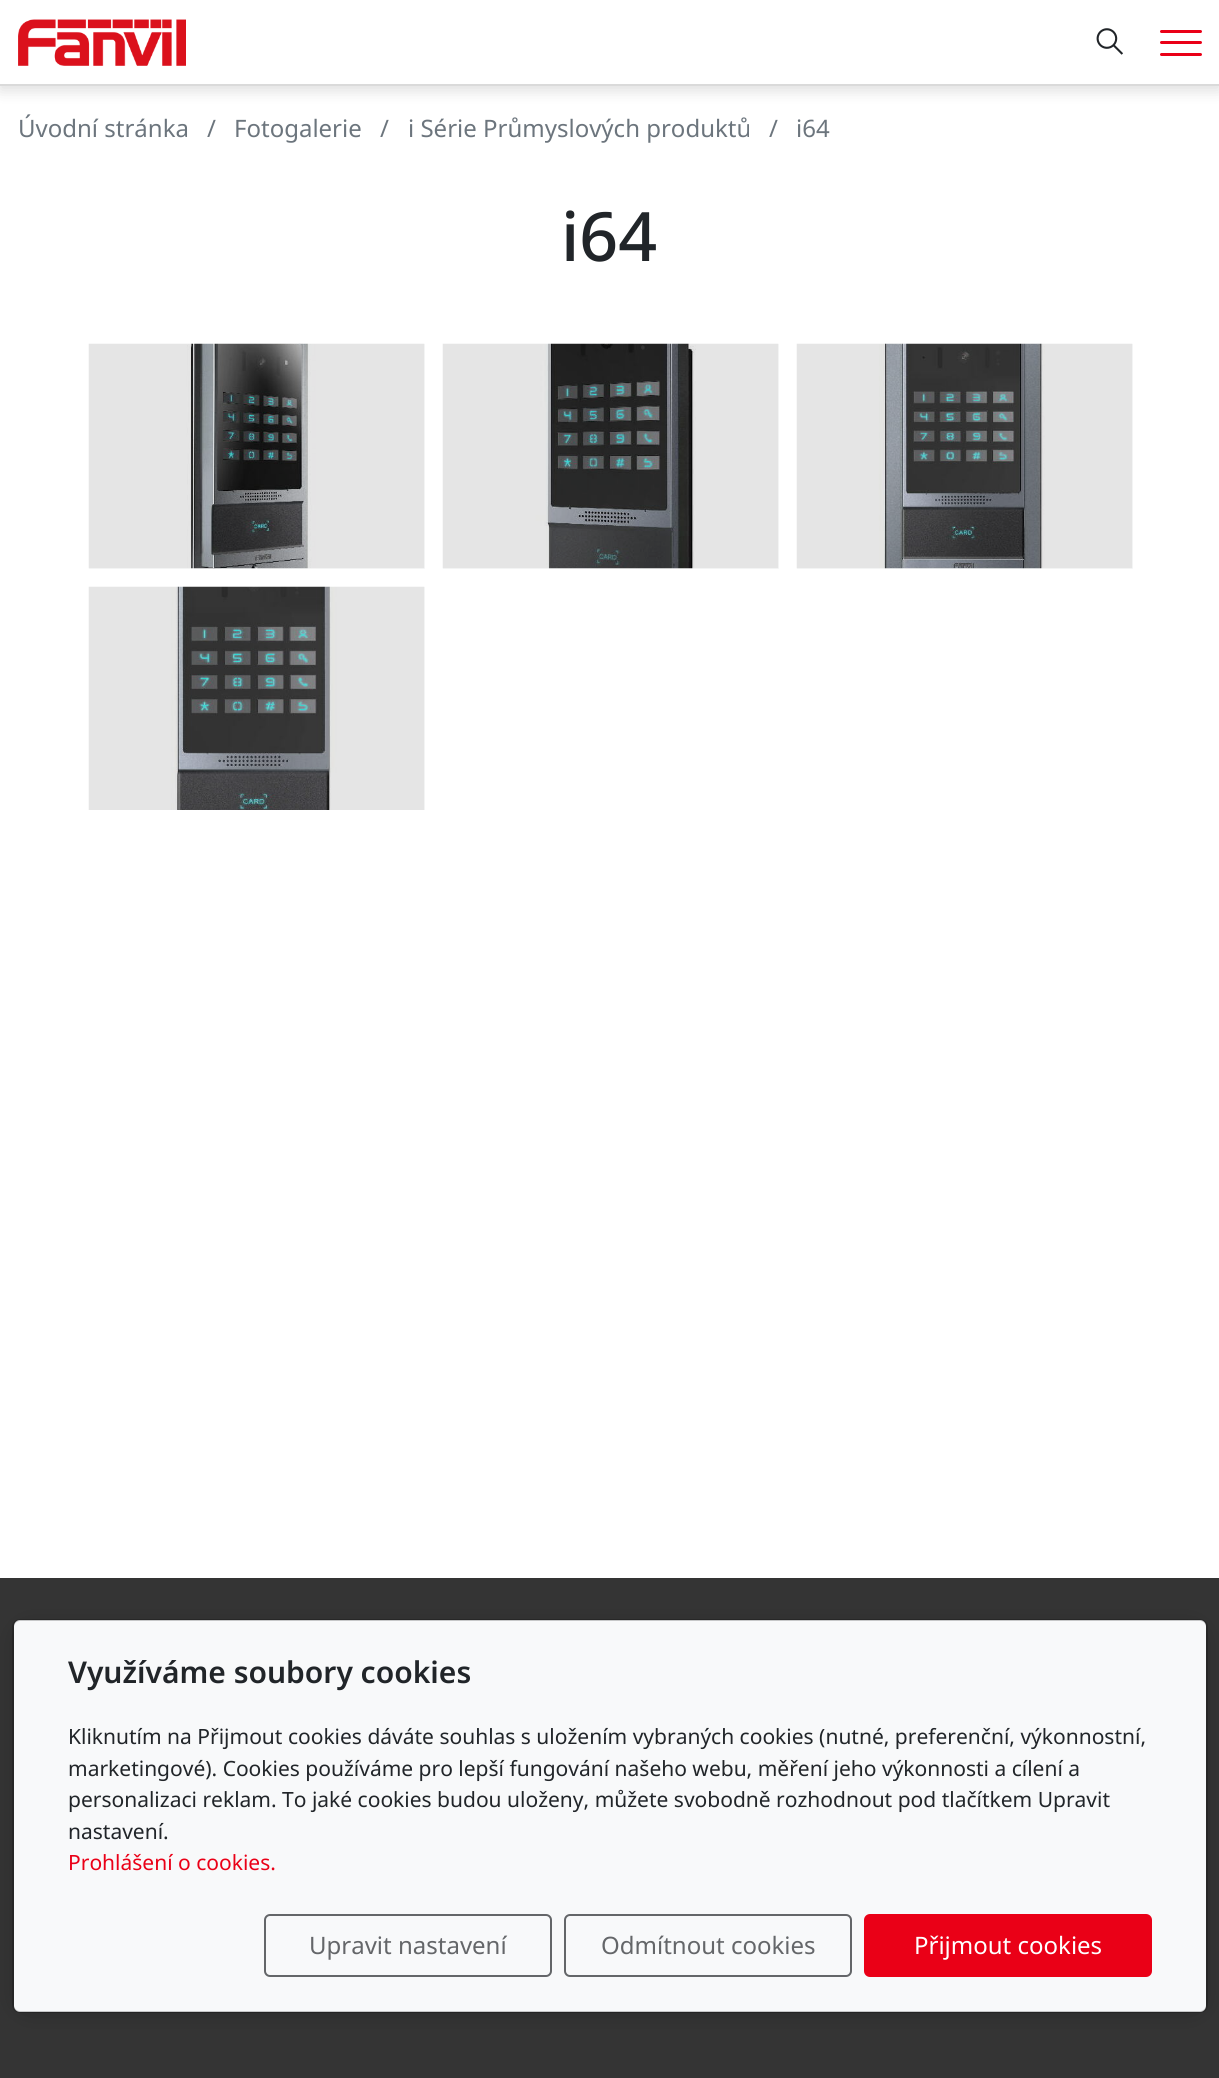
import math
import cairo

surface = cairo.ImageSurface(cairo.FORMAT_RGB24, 1219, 2078)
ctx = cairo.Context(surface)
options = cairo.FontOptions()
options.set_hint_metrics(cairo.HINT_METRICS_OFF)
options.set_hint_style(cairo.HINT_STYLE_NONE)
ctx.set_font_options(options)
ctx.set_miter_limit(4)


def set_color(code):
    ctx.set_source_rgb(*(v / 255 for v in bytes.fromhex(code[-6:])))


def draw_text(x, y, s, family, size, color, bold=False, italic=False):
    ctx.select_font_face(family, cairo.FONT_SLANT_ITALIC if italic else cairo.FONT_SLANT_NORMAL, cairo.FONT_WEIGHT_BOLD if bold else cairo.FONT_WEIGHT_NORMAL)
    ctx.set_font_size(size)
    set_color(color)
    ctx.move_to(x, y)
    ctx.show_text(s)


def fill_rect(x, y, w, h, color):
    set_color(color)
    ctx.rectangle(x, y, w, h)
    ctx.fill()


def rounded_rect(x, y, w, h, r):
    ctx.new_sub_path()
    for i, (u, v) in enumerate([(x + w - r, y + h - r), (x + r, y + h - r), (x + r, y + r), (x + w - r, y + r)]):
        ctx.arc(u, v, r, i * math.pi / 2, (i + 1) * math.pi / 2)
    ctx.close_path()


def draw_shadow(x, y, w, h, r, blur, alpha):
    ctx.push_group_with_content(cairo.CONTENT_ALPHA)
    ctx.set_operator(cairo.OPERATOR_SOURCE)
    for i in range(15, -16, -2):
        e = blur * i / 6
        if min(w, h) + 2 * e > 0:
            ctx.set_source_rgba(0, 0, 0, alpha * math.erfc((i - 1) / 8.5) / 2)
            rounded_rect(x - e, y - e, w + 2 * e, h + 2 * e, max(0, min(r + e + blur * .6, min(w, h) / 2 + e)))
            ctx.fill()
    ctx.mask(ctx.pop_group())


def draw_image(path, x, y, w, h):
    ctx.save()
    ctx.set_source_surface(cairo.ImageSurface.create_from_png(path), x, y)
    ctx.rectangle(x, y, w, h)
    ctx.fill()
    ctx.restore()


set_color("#ffffff")
ctx.paint()
set_color("#000000")
draw_shadow(0, 5, 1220, 85, 0, 7.5, 0.14)
fill_rect(0, 0, 1219, 84, "#ffffff")
fill_rect(0, 84, 1219, 2, "#dadada")
draw_image("assets/img1.png", 18, 19, 168, 47)
draw_image("assets/img2.png", 1096, 28, 27, 27)
set_color("#ea0017")
rounded_rect(1160, 30, 42, 3, 1.5)
ctx.fill()
rounded_rect(1160, 41, 42, 3, 1.5)
ctx.fill()
rounded_rect(1160, 53, 42, 3, 1.5)
ctx.fill()
draw_text(18, 137, "Úvodní stránka", "Noto Sans", 24, "#6c757d")
draw_text(207, 137, "/", "Noto Sans", 24, "#6c757d")
draw_text(234, 137, "Fotogalerie", "Noto Sans", 24, "#6c757d")
draw_text(380, 137, "/", "Noto Sans", 24, "#6c757d")
draw_text(408, 137, "i Série Průmyslových produktů", "Noto Sans", 24, "#6c757d")
draw_text(769, 137, "/", "Noto Sans", 24, "#6c757d")
draw_text(796, 137, "i64", "Noto Sans", 24, "#6c757d")
draw_text(561, 261, "i64", "Noto Sans Medium", 68, "#212529")
fill_rect(89, 344, 336, 225, "#f8f9fa")
draw_image("assets/img3.png", 88, 343, 337, 226)
fill_rect(443, 344, 336, 225, "#f8f9fa")
draw_image("assets/img4.png", 442, 343, 337, 226)
fill_rect(797, 344, 336, 225, "#f8f9fa")
draw_image("assets/img5.png", 796, 343, 337, 226)
fill_rect(424, 587, 1, 223, "#f8f9fa")
draw_image("assets/img6.png", 88, 586, 337, 224)
fill_rect(0, 1578, 1219, 500, "#343434")
set_color("#000000")
draw_shadow(27, 1637, 1166, 364, 0, 15, 0.5)
set_color("#f8f9fa")
rounded_rect(14, 1620, 1192, 392, 6)
ctx.fill()
rounded_rect(13, 1620, 1194, 392, 7)
ctx.set_source_rgba(0, 0, 0, 0.2)
ctx.stroke()
draw_text(68, 1683, "Využíváme soubory cookies", "Noto Sans SemiBold", 30, "#212529")
draw_text(68, 1744, "Kliknutím na Přijmout cookies dáváte souhlas s uložením vybraných cookies (nutné, preferenční, výkonnostní,", "Noto Sans", 21, "#212529")
draw_text(68, 1776, "marketingové). Cookies používáme pro lepší fungování našeho webu, měření jeho výkonnosti a cílení a", "Noto Sans", 21, "#212529")
draw_text(68, 1807, "personalizaci reklam. To jaké cookies budou uloženy, můžete svobodně rozhodnout pod tlačítkem Upravit", "Noto Sans", 21, "#212529")
draw_text(68, 1839, "nastavení.", "Noto Sans", 21, "#212529")
draw_text(68, 1870, "Prohlášení o cookies.", "Noto Sans", 21, "#ea0017")
rounded_rect(265, 1915, 286, 61, 5)
set_color("#646669")
ctx.stroke()
draw_text(309, 1954, "Upravit nastavení", "Noto Sans", 24, "#646669")
rounded_rect(565, 1915, 286, 61, 5)
ctx.stroke()
draw_text(601, 1954, "Odmítnout cookies", "Noto Sans", 24, "#646669")
set_color("#ea0017")
rounded_rect(865, 1915, 286, 61, 5)
ctx.fill_preserve()
ctx.stroke()
draw_text(914, 1954, "Přijmout cookies", "Noto Sans", 24, "#ffffff")
surface.write_to_png("output.png")
